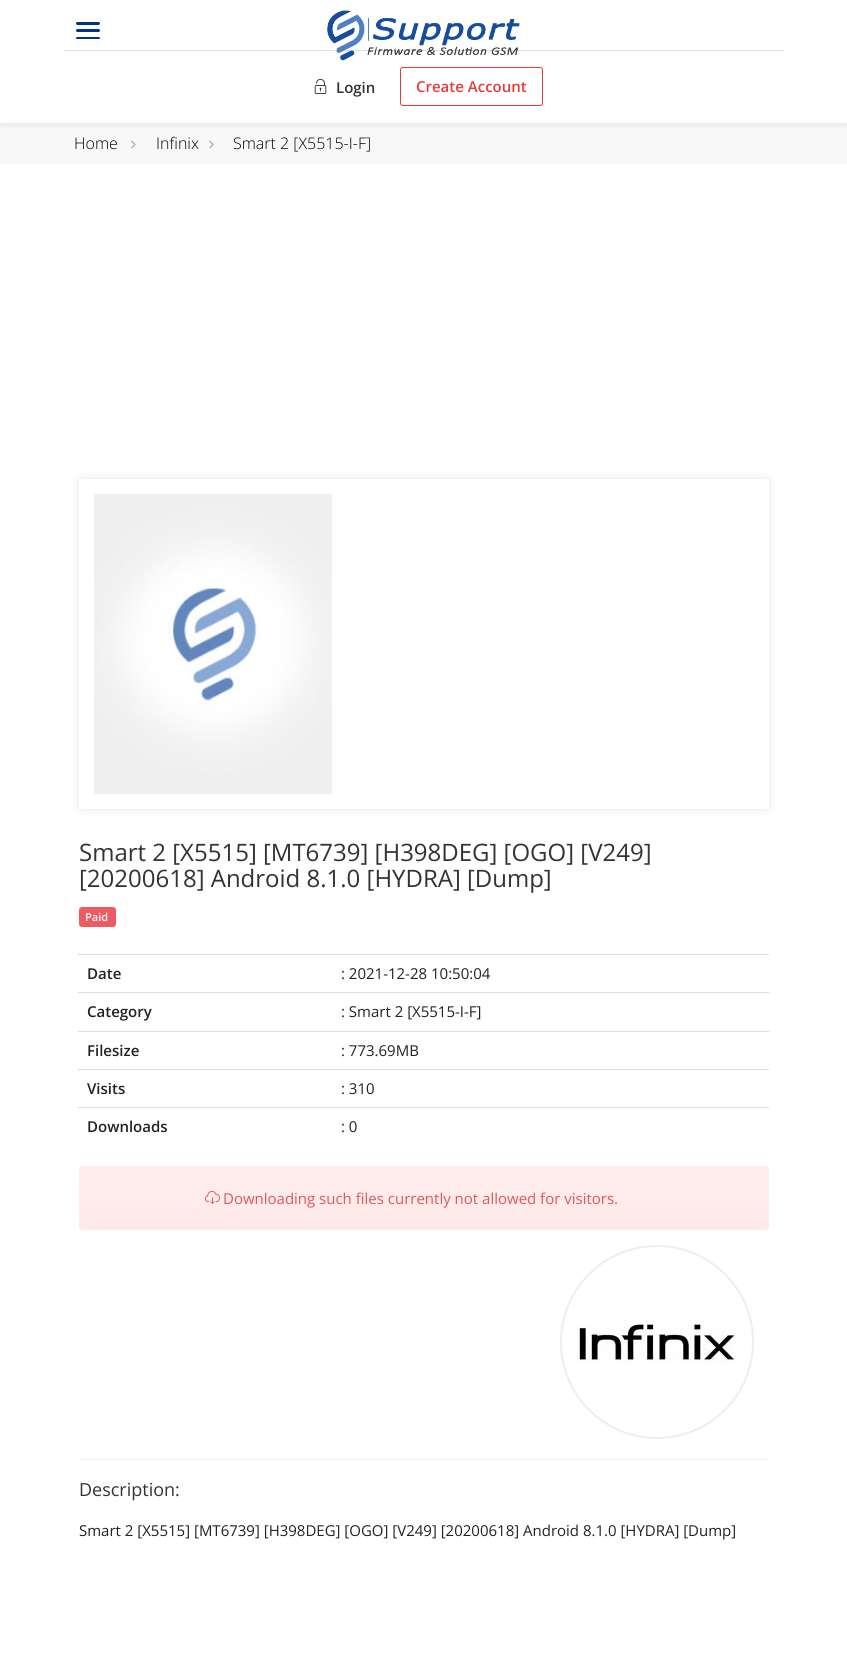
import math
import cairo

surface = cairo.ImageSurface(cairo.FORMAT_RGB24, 847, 1656)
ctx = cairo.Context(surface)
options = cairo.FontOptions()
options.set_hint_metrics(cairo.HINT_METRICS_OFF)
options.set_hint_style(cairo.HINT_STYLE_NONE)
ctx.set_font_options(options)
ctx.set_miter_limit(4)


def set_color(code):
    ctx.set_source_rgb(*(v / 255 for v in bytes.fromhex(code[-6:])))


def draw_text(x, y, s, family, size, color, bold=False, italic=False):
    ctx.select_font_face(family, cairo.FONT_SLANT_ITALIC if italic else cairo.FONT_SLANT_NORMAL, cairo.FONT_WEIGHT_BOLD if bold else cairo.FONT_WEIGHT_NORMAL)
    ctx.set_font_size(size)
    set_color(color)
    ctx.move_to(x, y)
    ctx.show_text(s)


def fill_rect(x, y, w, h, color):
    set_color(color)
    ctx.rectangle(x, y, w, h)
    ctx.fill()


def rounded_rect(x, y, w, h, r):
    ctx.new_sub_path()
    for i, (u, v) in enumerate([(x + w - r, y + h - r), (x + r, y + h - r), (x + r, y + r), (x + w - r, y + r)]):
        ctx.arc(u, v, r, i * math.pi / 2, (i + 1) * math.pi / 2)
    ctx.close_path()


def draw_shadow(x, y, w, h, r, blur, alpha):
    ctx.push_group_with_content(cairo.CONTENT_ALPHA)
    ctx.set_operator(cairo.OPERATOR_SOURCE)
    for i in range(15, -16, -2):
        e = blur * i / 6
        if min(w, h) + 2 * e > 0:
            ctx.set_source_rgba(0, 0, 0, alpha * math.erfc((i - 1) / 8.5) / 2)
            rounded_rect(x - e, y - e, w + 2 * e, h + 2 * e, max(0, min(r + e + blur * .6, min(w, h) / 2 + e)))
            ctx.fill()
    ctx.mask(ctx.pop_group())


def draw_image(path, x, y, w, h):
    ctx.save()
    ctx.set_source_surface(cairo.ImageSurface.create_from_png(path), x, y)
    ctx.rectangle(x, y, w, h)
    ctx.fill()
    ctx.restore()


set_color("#ffffff")
ctx.paint()
fill_rect(0, 123, 847, 41, "#f8f8f8")
ctx.save()
ctx.rectangle(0, 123, 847, 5)
ctx.clip()
set_color("#000000")
draw_shadow(0, 0, 847, 123, 0, 5, 0.12)
ctx.restore()
set_color("#013088")
rounded_rect(76, 37, 24, 2, 1)
ctx.fill()
rounded_rect(76, 22, 24, 3, 1.5)
ctx.fill()
rounded_rect(76, 29, 24, 3, 1.5)
ctx.fill()
fill_rect(64, 50, 720, 1, "#e0e0e0")
draw_image("assets/img1.png", 327, 10, 193, 51)
draw_image("assets/img2.png", 314, 78, 13, 16)
draw_text(336, 93, "Login", "Open Sans SemiBold", 15, "#333333")
rounded_rect(400.5, 67.5, 142, 38, 2.5)
set_color("#e63b3b")
ctx.set_line_width(1)
ctx.stroke()
draw_text(416, 92, "Create Account", "Open Sans SemiBold", 15, "#e63b3b")
draw_text(74, 149, "Home", "Open Sans Light", 16, "#000000")
draw_image("assets/img3.png", 131, 140, 5, 9)
draw_text(156, 149, "Infinix", "Open Sans Light", 16, "#000000")
draw_image("assets/img3.png", 209, 140, 5, 9)
draw_text(233, 149, "Smart 2 [X5515-I-F]", "Open Sans Light", 16, "#000000")
set_color("#000000")
draw_shadow(79, 479, 690, 330, 4, 5, 0.1)
set_color("#ffffff")
rounded_rect(79, 479, 690, 330, 4)
ctx.fill()
draw_image("assets/img4.png", 94, 494, 238, 300)
draw_text(79, 861, "Smart 2 [X5515] [MT6739] [H398DEG] [OGO] [V249]", "Open Sans", 24, "#333333")
draw_text(79, 887, "[20200618] Android 8.1.0 [HYDRA] [Dump]", "Open Sans", 24, "#333333")
set_color("#ef5a62")
rounded_rect(79, 907, 37, 20, 3)
ctx.fill()
draw_text(85, 921, "Paid", "Open Sans SemiBold", 11, "#ffffff")
draw_text(87, 979, "Date", "Open Sans SemiBold", 15, "#222222")
fill_rect(78, 954, 691, 1, "#dddddd")
draw_text(341, 979, ": 2021-12-28 10:50:04", "Open Sans", 15, "#222222")
draw_text(87, 1017, "Category", "Open Sans SemiBold", 15, "#222222")
fill_rect(78, 992, 691, 1, "#dddddd")
draw_text(341, 1017, ": Smart 2 [X5515-I-F]", "Open Sans", 15, "#222222")
draw_text(87, 1056, "Filesize", "Open Sans SemiBold", 15, "#222222")
fill_rect(78, 1031, 691, 1, "#dddddd")
draw_text(341, 1056, ": 773.69MB", "Open Sans", 15, "#222222")
draw_text(87, 1094, "Visits", "Open Sans SemiBold", 15, "#222222")
fill_rect(78, 1069, 691, 1, "#dddddd")
draw_text(341, 1094, ": 310", "Open Sans", 15, "#222222")
draw_text(87, 1132, "Downloads", "Open Sans SemiBold", 15, "#222222")
fill_rect(78, 1107, 691, 1, "#dddddd")
draw_text(341, 1132, ": 0", "Open Sans", 15, "#222222")
set_color("#ffe9e9")
rounded_rect(79, 1166, 690, 64, 3)
ctx.fill()
gradient = cairo.LinearGradient(424, 1166, 424, 1230)
gradient.add_color_stop_rgba(0, 1, 1, 1, 0.2)
gradient.add_color_stop_rgba(1, 1, 1, 1, 0)
ctx.set_source(gradient)
rounded_rect(79, 1166, 690, 64, 3)
ctx.fill()
draw_image("assets/img5.png", 205, 1190, 15, 14)
draw_text(223, 1204, "Downloading such files currently not allowed for visitors.", "Open Sans", 15, "#de5959")
ctx.new_path()
ctx.arc(657, 1342, 96, 0, 2 * math.pi)
set_color("#eeeeee")
ctx.set_line_width(2)
ctx.stroke()
draw_image("assets/img6.png", 576, 1324, 159, 40)
fill_rect(79, 1459, 690, 1, "#eeeeee")
draw_text(79, 1496, "Description:", "Open Sans", 18, "#333333")
draw_text(79, 1536, "Smart 2 [X5515] [MT6739] [H398DEG] [OGO] [V249] [20200618] Android 8.1.0 [HYDRA] [Dump]", "Open Sans", 15, "#222222")
surface.write_to_png("output.png")
